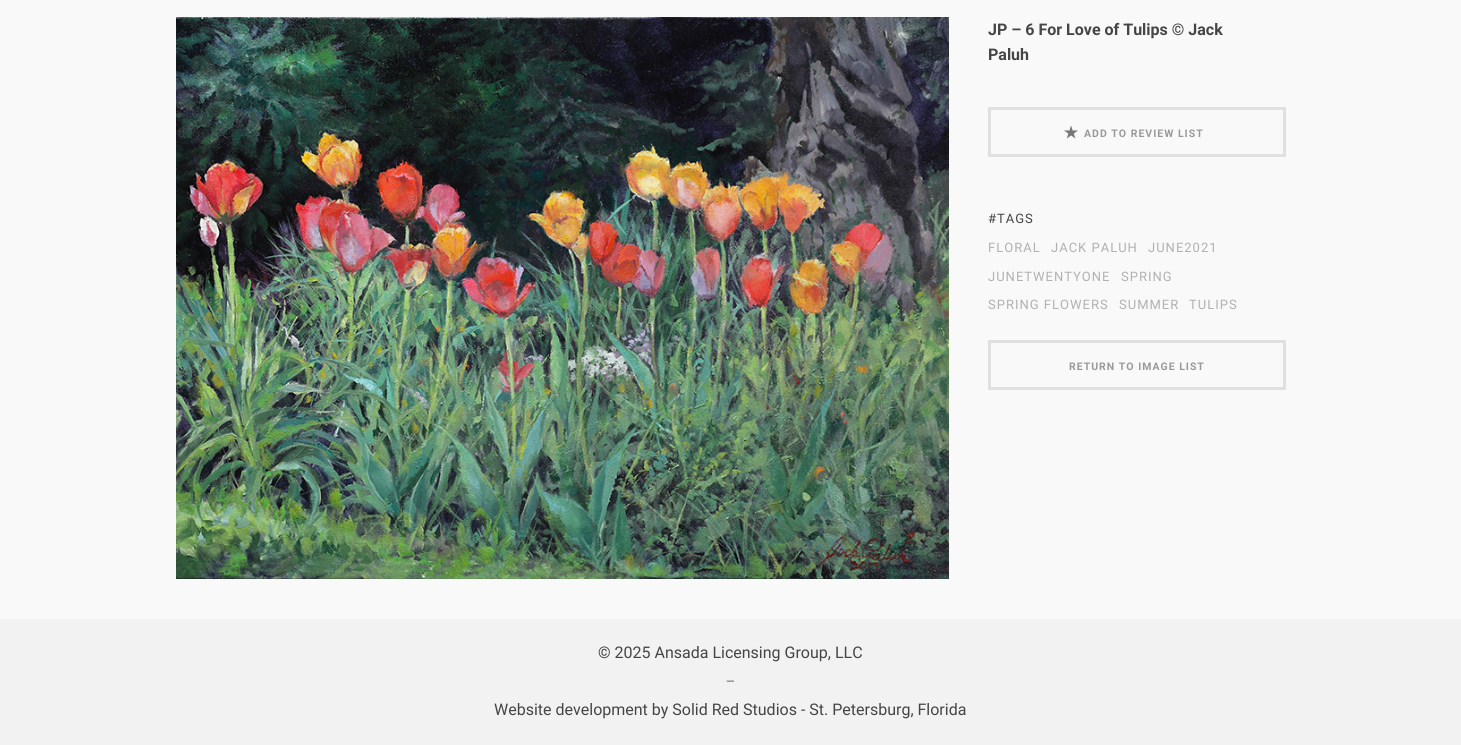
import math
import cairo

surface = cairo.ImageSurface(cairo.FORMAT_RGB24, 1461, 745)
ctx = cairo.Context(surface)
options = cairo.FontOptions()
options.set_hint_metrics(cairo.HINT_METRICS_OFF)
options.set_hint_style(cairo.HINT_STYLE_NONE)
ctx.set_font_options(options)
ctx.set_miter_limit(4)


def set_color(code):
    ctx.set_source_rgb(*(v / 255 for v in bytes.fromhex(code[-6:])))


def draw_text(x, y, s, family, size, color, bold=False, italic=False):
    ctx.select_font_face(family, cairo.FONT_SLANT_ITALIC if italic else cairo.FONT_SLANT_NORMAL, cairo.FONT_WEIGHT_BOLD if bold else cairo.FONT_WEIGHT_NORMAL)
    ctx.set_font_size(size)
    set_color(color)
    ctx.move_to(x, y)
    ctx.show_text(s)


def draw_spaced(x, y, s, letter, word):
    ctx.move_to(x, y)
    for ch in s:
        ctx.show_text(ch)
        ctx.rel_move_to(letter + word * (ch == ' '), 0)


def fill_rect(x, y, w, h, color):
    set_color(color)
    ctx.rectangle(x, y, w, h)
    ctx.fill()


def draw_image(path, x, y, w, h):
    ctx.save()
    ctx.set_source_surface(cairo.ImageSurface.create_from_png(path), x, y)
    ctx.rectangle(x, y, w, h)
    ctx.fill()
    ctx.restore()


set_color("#f9f9f9")
ctx.paint()
draw_image("assets/img1.png", 176, 17, 773, 562)
draw_text(988, 35, "JP – 6 For Love of Tulips © Jack", "Roboto", 16, "#454545", bold=True)
draw_text(988, 60, "Paluh", "Roboto", 16, "#454545", bold=True)
ctx.rectangle(989.5, 108.5, 295, 47)
set_color("#e0e0e0")
ctx.set_line_width(3)
ctx.stroke()
draw_image("assets/img2.png", 1064, 125, 14, 14)
ctx.set_font_size(10.5)
set_color("#999999")
draw_spaced(1084, 137, "ADD TO REVIEW LIST", 1, 0)
ctx.select_font_face("Roboto")
ctx.set_font_size(13)
set_color("#454545")
draw_spaced(988, 223, "#TAGS", 1, 0)
set_color("#b1b1b1")
draw_spaced(988, 252, "FLORAL", 1, 0)
draw_spaced(1051, 252, "JACK PALUH", 1, 0)
draw_spaced(1148, 252, "JUNE2021", 1, 0)
draw_spaced(988, 281, "JUNETWENTYONE", 1, 0)
draw_spaced(1121, 281, "SPRING", 1, 0)
draw_spaced(988, 309, "SPRING FLOWERS", 1, 0)
draw_spaced(1119, 309, "SUMMER", 1, 0)
draw_spaced(1189, 309, "TULIPS", 1, 0)
ctx.rectangle(989.5, 341.5, 295, 47)
set_color("#e0e0e0")
ctx.stroke()
ctx.select_font_face("Roboto", cairo.FONT_SLANT_NORMAL, cairo.FONT_WEIGHT_BOLD)
ctx.set_font_size(10.5)
set_color("#999999")
draw_spaced(1069, 370, "RETURN TO IMAGE LIST", 1, 0)
fill_rect(0, 619, 1461, 126, "#f2f2f2")
draw_text(598, 658, "© 2025 Ansada Licensing Group, LLC", "Roboto", 16, "#454545")
draw_text(726, 685, "—", "Roboto", 11, "#454545")
draw_text(494, 715, "Website development by Solid Red Studios - St. Petersburg, Florida", "Roboto", 16, "#454545")
surface.write_to_png("output.png")
